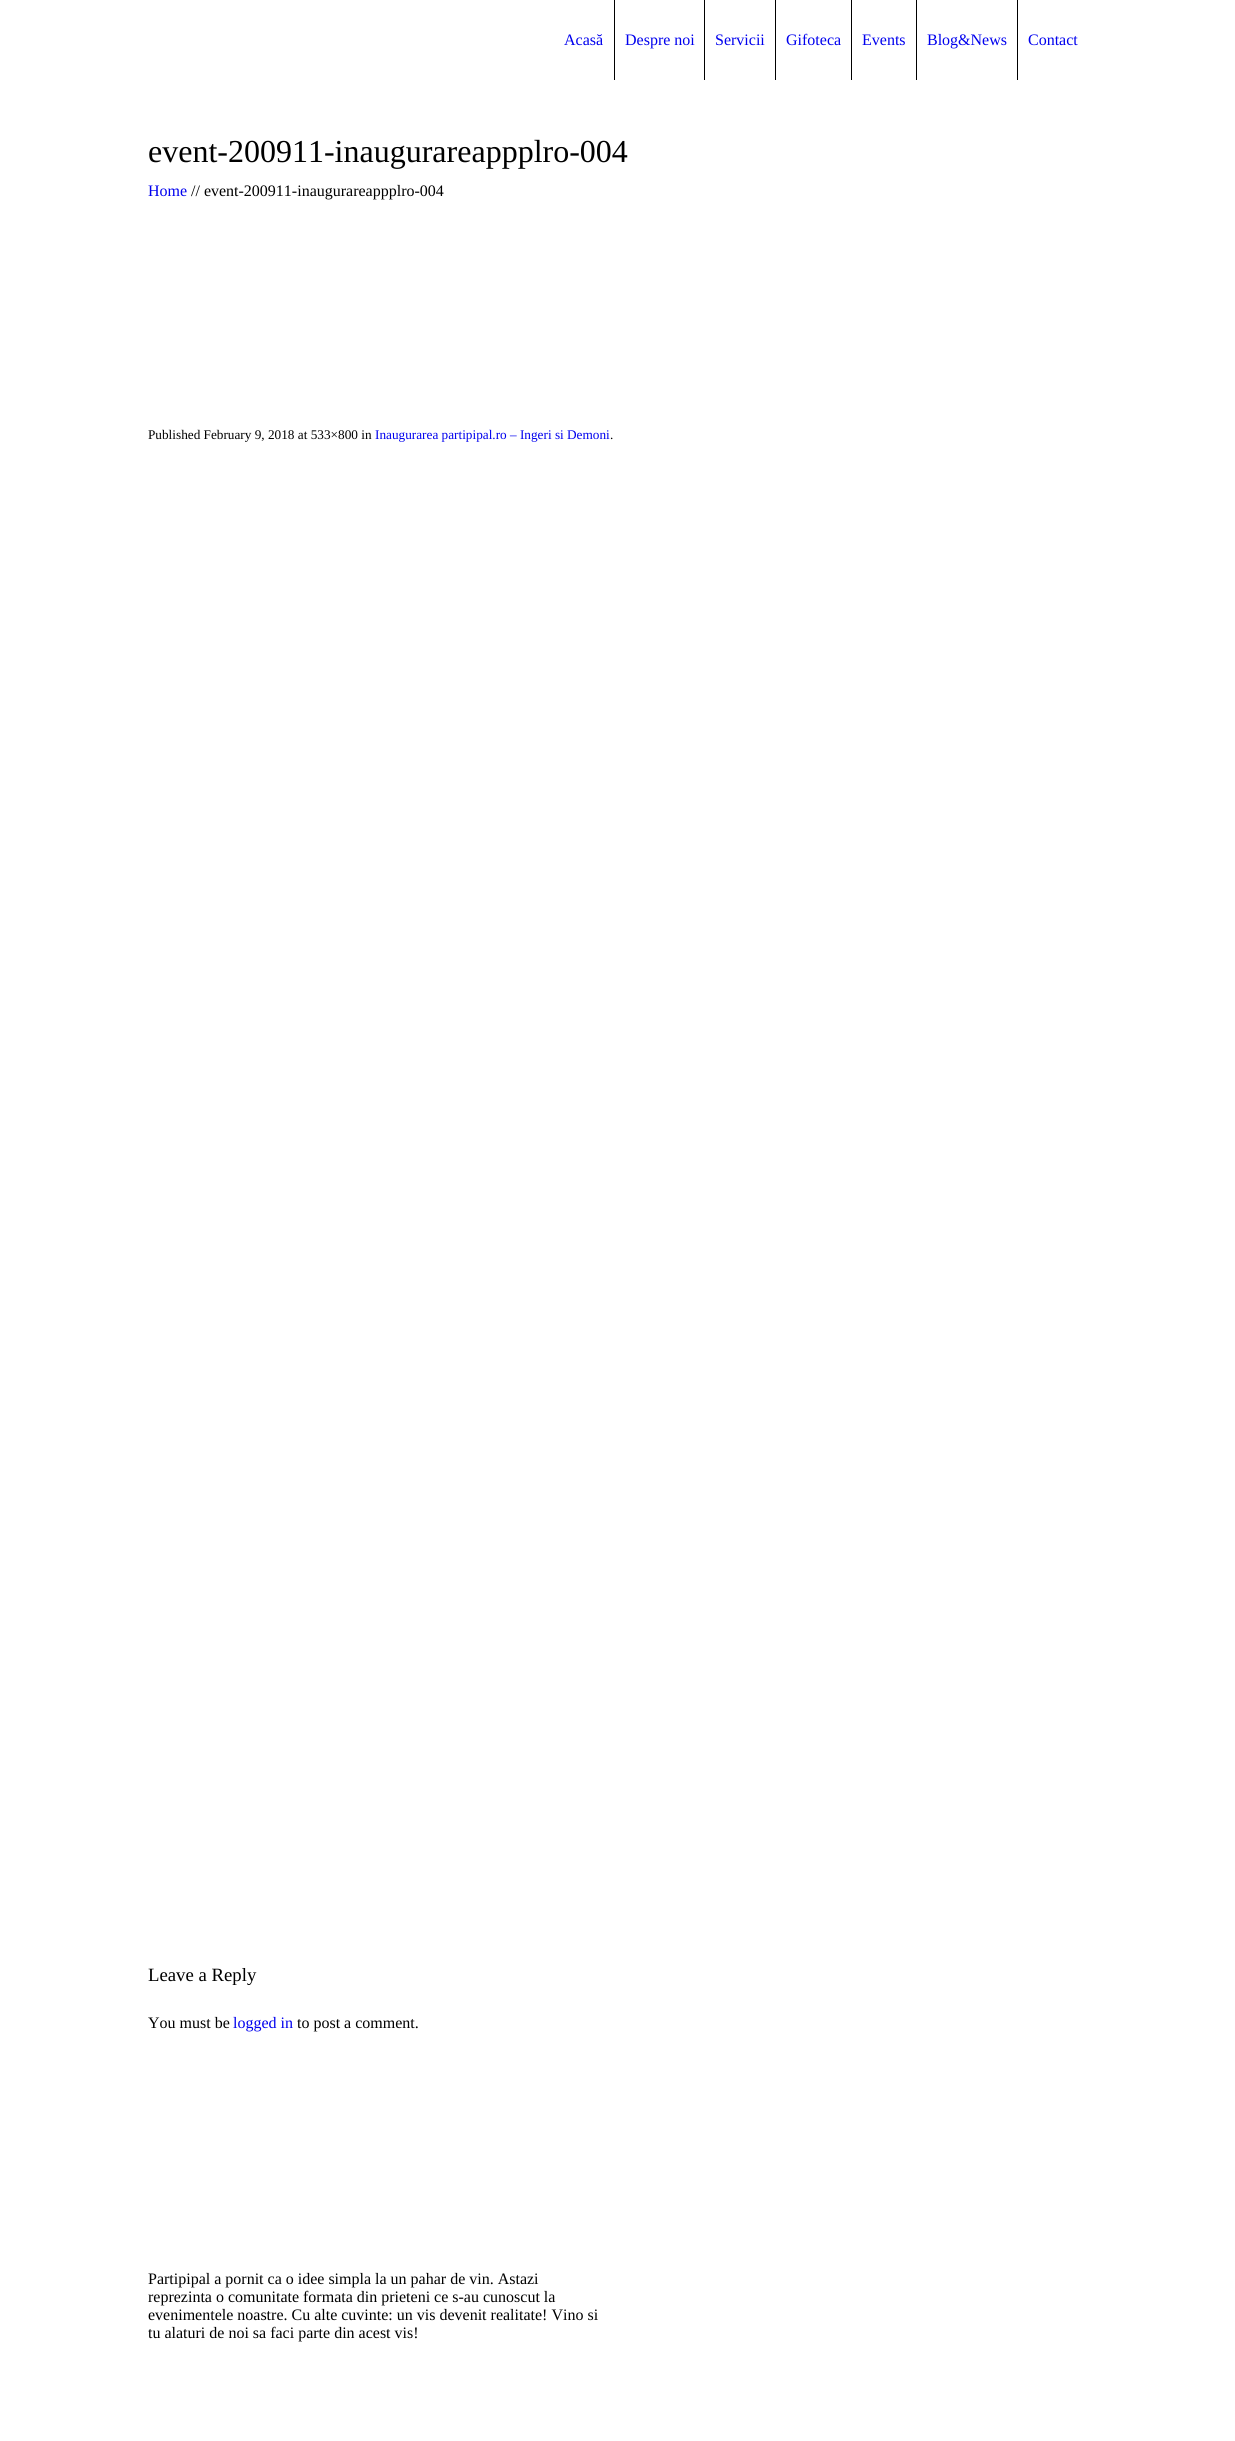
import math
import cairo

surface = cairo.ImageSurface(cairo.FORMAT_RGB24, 1235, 2441)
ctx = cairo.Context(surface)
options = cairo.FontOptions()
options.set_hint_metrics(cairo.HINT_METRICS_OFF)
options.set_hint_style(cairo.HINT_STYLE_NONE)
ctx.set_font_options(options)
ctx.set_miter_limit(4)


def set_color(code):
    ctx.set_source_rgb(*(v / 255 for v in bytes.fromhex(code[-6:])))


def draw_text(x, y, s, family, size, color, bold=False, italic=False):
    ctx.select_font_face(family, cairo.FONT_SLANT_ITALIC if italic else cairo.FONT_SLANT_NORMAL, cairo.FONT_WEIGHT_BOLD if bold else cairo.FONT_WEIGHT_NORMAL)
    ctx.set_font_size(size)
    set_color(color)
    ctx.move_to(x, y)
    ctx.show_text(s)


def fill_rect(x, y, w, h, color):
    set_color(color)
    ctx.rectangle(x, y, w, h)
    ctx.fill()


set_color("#ffffff")
ctx.paint()
fill_rect(614, 0, 1, 80, "#000000")
draw_text(564, 45, "Acasă", "Liberation Serif", 16, "#0000ee")
fill_rect(704, 0, 1, 80, "#000000")
draw_text(625, 45, "Despre noi", "Liberation Serif", 16, "#0000ee")
fill_rect(775, 0, 1, 80, "#000000")
draw_text(715, 45, "Servicii", "Liberation Serif", 16, "#0000ee")
fill_rect(851, 0, 1, 80, "#000000")
draw_text(786, 45, "Gifoteca", "Liberation Serif", 16, "#0000ee")
fill_rect(916, 0, 1, 80, "#000000")
draw_text(862, 45, "Events", "Liberation Serif", 16, "#0000ee")
fill_rect(1017, 0, 1, 80, "#000000")
draw_text(927, 45, "Blog&News", "Liberation Serif", 16, "#0000ee")
draw_text(1028, 45, "Contact", "Liberation Serif", 16, "#0000ee")
draw_text(148, 162, "event-200911-inaugurareappplro-004", "Liberation Serif", 32, "#000000")
draw_text(148, 196, "Home", "Liberation Serif", 16, "#0000ee")
draw_text(191, 196, "// event-200911-inaugurareappplro-004", "Liberation Serif", 16, "#000000")
draw_text(148, 439, "Published February 9, 2018 at 533×800 in", "Liberation Serif", 13.25, "#000000")
draw_text(375, 439, "Inaugurarea partipipal.ro – Ingeri si Demoni", "Liberation Serif", 13.25, "#0000ee")
draw_text(610, 439, ".", "Liberation Serif", 13.25, "#000000")
draw_text(148, 1981, "Leave a Reply", "Liberation Serif", 18.75, "#000000")
draw_text(148, 2028, "You must be", "Liberation Serif", 16, "#000000")
draw_text(233, 2028, "logged in", "Liberation Serif", 16, "#0000ee")
draw_text(297, 2028, "to post a comment.", "Liberation Serif", 16, "#000000")
draw_text(148, 2284, "Partipipal a pornit ca o idee simpla la un pahar de vin. Astazi", "Liberation Serif", 16, "#000000")
draw_text(148, 2302, "reprezinta o comunitate formata din prieteni ce s-au cunoscut la", "Liberation Serif", 16, "#000000")
draw_text(148, 2320, "evenimentele noastre. Cu alte cuvinte: un vis devenit realitate! Vino si", "Liberation Serif", 16, "#000000")
draw_text(148, 2338, "tu alaturi de noi sa faci parte din acest vis!", "Liberation Serif", 16, "#000000")
surface.write_to_png("output.png")
